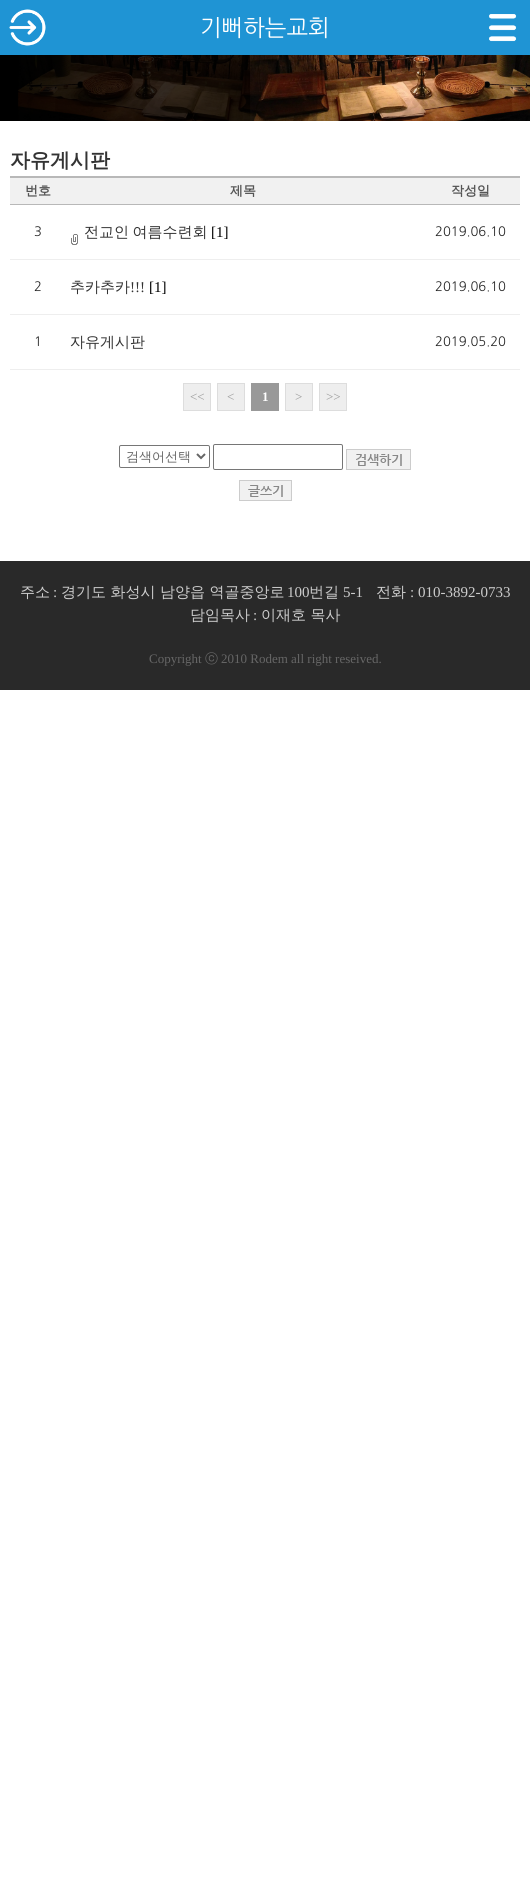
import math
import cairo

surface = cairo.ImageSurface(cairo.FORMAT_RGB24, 530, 1888)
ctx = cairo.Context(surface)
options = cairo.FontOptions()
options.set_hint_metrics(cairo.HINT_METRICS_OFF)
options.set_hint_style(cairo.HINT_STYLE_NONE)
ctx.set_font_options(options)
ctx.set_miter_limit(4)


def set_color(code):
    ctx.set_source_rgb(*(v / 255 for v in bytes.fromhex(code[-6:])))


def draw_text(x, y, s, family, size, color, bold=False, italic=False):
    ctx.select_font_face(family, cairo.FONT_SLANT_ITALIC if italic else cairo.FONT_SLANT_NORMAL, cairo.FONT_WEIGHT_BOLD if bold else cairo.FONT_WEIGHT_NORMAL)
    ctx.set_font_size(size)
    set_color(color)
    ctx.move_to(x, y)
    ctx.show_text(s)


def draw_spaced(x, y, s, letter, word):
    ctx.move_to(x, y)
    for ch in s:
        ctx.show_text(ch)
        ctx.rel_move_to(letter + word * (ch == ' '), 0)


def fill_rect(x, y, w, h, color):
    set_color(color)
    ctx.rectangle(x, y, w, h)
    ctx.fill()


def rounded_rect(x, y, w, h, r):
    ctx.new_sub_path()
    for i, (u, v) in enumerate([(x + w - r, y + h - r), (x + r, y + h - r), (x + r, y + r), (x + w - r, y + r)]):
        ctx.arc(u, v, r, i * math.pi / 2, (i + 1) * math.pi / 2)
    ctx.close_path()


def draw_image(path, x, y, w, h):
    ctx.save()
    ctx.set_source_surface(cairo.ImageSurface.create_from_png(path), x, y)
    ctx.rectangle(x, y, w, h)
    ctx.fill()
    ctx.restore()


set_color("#ffffff")
ctx.paint()
fill_rect(0, 0, 530, 55, "#1f94d4")
draw_image("assets/img1.png", 9, 9, 37, 37)
draw_text(200, 36, "기뻐하는교회", "NanumGothic", 23, "#ffffff")
draw_image("assets/img2.png", 489, 14, 28, 28)
draw_image("assets/img3.png", 0, 55, 530, 66)
draw_text(10, 167, "자유게시판", "WenQuanYi Zen Hei", 20, "#333333", bold=True)
fill_rect(10, 178, 510, 26, "#f1f1f1")
draw_text(25, 195, "번호", "WenQuanYi Zen Hei", 13, "#555555", bold=True)
draw_text(230, 195, "제목", "WenQuanYi Zen Hei", 13, "#555555", bold=True)
fill_rect(10, 204, 510, 1, "#b8b8b8")
fill_rect(10, 176, 510, 2, "#b8b8b8")
draw_text(451, 195, "작성일", "WenQuanYi Zen Hei", 13, "#555555", bold=True)
draw_text(34, 236, "3", "NanumGothic", 13, "#232323")
draw_image("assets/img4.png", 71, 234, 7, 11)
ctx.select_font_face("WenQuanYi Zen Hei Medium")
ctx.set_font_size(15)
set_color("#333333")
draw_spaced(84, 237, "전교인 여름수련회", 0, -1)
draw_text(211, 237, "[1]", "Liberation Serif", 15, "#000000")
fill_rect(10, 259, 510, 1, "#eeeeee")
draw_text(435, 236, "2019.06.10", "NanumGothic", 13, "#232323")
draw_text(34, 291, "2", "NanumGothic", 13, "#232323")
draw_text(70, 292, "추카추카", "WenQuanYi Zen Hei Medium", 15, "#333333")
draw_text(130, 292, "!!!", "Liberation Serif", 15, "#333333")
draw_text(149, 292, "[1]", "Liberation Serif", 15, "#000000")
fill_rect(10, 314, 510, 1, "#eeeeee")
draw_text(435, 291, "2019.06.10", "NanumGothic", 13, "#232323")
draw_text(34, 346, "1", "NanumGothic", 13, "#232323")
draw_text(70, 347, "자유게시판", "WenQuanYi Zen Hei Medium", 15, "#333333")
fill_rect(10, 369, 510, 1, "#eeeeee")
draw_text(435, 346, "2019.05.20", "NanumGothic", 13, "#232323")
set_color("#eeeeee")
ctx.rectangle(183.5, 383.5, 27, 27)
ctx.fill_preserve()
set_color("#dddddd")
ctx.set_line_width(1)
ctx.stroke()
draw_text(190, 401, "<<", "Liberation Serif", 13, "#999999")
set_color("#eeeeee")
ctx.rectangle(217.5, 383.5, 27, 27)
ctx.fill_preserve()
set_color("#dddddd")
ctx.stroke()
draw_text(227, 401, "<", "Liberation Serif", 13, "#999999")
fill_rect(251, 383, 28, 28, "#999999")
draw_text(262, 401, "1", "Liberation Serif", 13, "#ffffff", bold=True)
set_color("#eeeeee")
ctx.rectangle(285.5, 383.5, 27, 27)
ctx.fill_preserve()
set_color("#dddddd")
ctx.stroke()
draw_text(295, 401, ">", "Liberation Serif", 13, "#999999")
set_color("#eeeeee")
ctx.rectangle(319.5, 383.5, 27, 27)
ctx.fill_preserve()
set_color("#dddddd")
ctx.stroke()
draw_text(326, 401, ">>", "Liberation Serif", 13, "#999999")
rounded_rect(119.5, 445.5, 90, 22, 1.5)
set_color("#767676")
ctx.stroke()
ctx.new_path()
ctx.move_to(197, 454)
ctx.line_to(201, 458)
ctx.line_to(205, 454)
set_color("#666666")
ctx.set_line_width(2)
ctx.stroke()
draw_text(126, 461, "검색어선택", "WenQuanYi Zen Hei Medium", 13, "#666666")
rounded_rect(213.5, 444.5, 129, 25, 1.5)
set_color("#767676")
ctx.set_line_width(1)
ctx.stroke()
draw_image("assets/img5.png", 346, 449, 65, 21)
draw_image("assets/img6.png", 239, 480, 53, 21)
fill_rect(0, 561, 530, 129, "#292929")
draw_text(20, 597, "주소", "WenQuanYi Zen Hei Medium", 15, "#cccccc")
draw_text(53, 597, ":", "Liberation Serif", 15, "#cccccc")
draw_text(61, 597, "경기도 화성시 남양읍 역골중앙로", "WenQuanYi Zen Hei Medium", 15, "#cccccc")
draw_text(287, 597, "100", "Liberation Serif", 15, "#cccccc")
draw_text(309, 597, "번길", "WenQuanYi Zen Hei Medium", 15, "#cccccc")
draw_text(343, 597, "5-1", "Liberation Serif", 15, "#cccccc")
draw_text(376, 597, "전화", "WenQuanYi Zen Hei Medium", 15, "#cccccc")
draw_text(410, 597, ": 010-3892-0733", "Liberation Serif", 15, "#cccccc")
draw_text(190, 620, "담임목사", "WenQuanYi Zen Hei Medium", 15, "#cccccc")
draw_text(253, 620, ":", "Liberation Serif", 15, "#cccccc")
draw_text(261, 620, "이재호 목사", "WenQuanYi Zen Hei Medium", 15, "#cccccc")
draw_text(149, 663, "Copyright", "Liberation Serif", 13, "#666666")
draw_text(205, 663, "ⓒ", "WenQuanYi Zen Hei Medium", 13, "#666666")
draw_text(221, 663, "2010 Rodem all right reseived.", "Liberation Serif", 13, "#666666")
surface.write_to_png("output.png")
